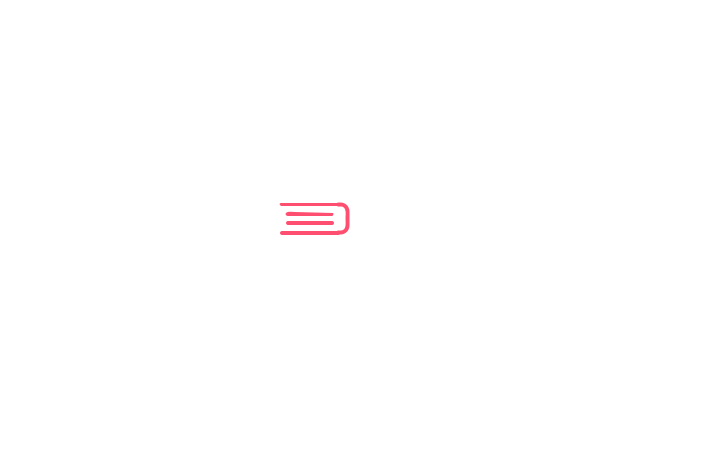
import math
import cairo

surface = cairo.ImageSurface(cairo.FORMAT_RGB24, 703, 473)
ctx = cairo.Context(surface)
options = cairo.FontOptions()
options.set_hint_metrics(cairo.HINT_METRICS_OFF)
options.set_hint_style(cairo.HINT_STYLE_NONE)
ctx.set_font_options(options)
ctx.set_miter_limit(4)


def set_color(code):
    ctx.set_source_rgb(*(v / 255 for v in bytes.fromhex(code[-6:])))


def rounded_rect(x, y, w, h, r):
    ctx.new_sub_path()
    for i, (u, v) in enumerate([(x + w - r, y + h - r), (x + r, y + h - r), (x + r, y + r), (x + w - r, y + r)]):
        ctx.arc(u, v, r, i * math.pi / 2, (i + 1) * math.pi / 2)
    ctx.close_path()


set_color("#ffffff")
ctx.paint()
set_color("#fe4f70")
rounded_rect(280, 231, 60, 4, 2)
ctx.fill()
ctx.set_fill_rule(cairo.FILL_RULE_EVEN_ODD)
ctx.new_path()
ctx.move_to(337.5, 234.5)
ctx.line_to(337.5, 202.5)
ctx.line_to(340.5, 202.5)
ctx.curve_to(345.5, 202.5, 349.5, 206.5, 349.5, 211.5)
ctx.line_to(349.5, 225.5)
ctx.curve_to(349.5, 230.5, 345.5, 234.5, 340.5, 234.5)
ctx.close_path()
ctx.move_to(337.5, 230.5)
ctx.line_to(337.5, 206.5)
ctx.line_to(341.5, 206.5)
ctx.curve_to(347, 207.5, 345.5, 214.5, 345.5, 218.5)
ctx.curve_to(345.5, 222.5, 347, 230.5, 340.5, 230.5)
ctx.close_path()
ctx.fill()
ctx.set_fill_rule(cairo.FILL_RULE_WINDING)
ctx.new_path()
ctx.move_to(338, 206)
ctx.line_to(281, 206)
ctx.line_to(280, 205)
ctx.curve_to(279, 204, 280, 203, 281, 203)
ctx.line_to(338, 203)
ctx.curve_to(340, 203, 340, 206, 338, 206)
ctx.close_path()
ctx.move_to(332, 216)
ctx.line_to(288, 216)
ctx.curve_to(286, 216, 285, 214, 286, 213)
ctx.curve_to(288, 211, 292, 212, 295, 212)
ctx.line_to(333, 213)
ctx.curve_to(334, 214, 333, 216, 332, 216)
ctx.close_path()
ctx.fill()
rounded_rect(286, 221, 48, 4, 2)
ctx.fill()
surface.write_to_png("output.png")
